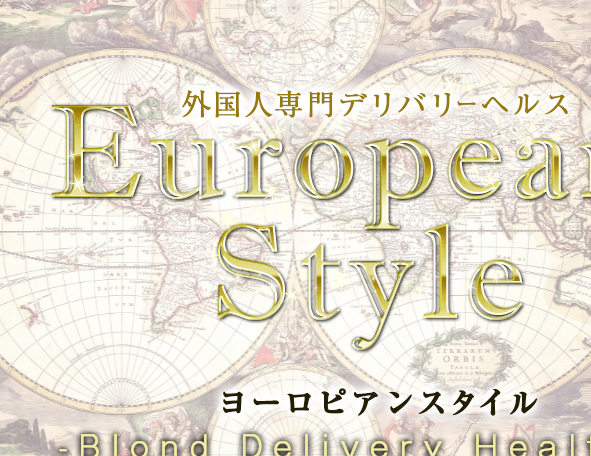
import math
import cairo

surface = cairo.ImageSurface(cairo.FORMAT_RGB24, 591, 456)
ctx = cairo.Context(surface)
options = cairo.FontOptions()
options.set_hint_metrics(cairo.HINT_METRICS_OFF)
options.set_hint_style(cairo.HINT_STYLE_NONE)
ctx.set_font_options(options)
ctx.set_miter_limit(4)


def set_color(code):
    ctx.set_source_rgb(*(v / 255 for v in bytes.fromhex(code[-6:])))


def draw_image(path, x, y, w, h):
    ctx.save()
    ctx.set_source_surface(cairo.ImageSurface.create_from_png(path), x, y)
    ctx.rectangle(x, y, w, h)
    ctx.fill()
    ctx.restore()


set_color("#ffffff")
ctx.paint()
draw_image("assets/img1.png", 0, 0, 591, 456)
draw_image("assets/img2.png", 50, 74, 541, 382)
surface.write_to_png("output.png")
